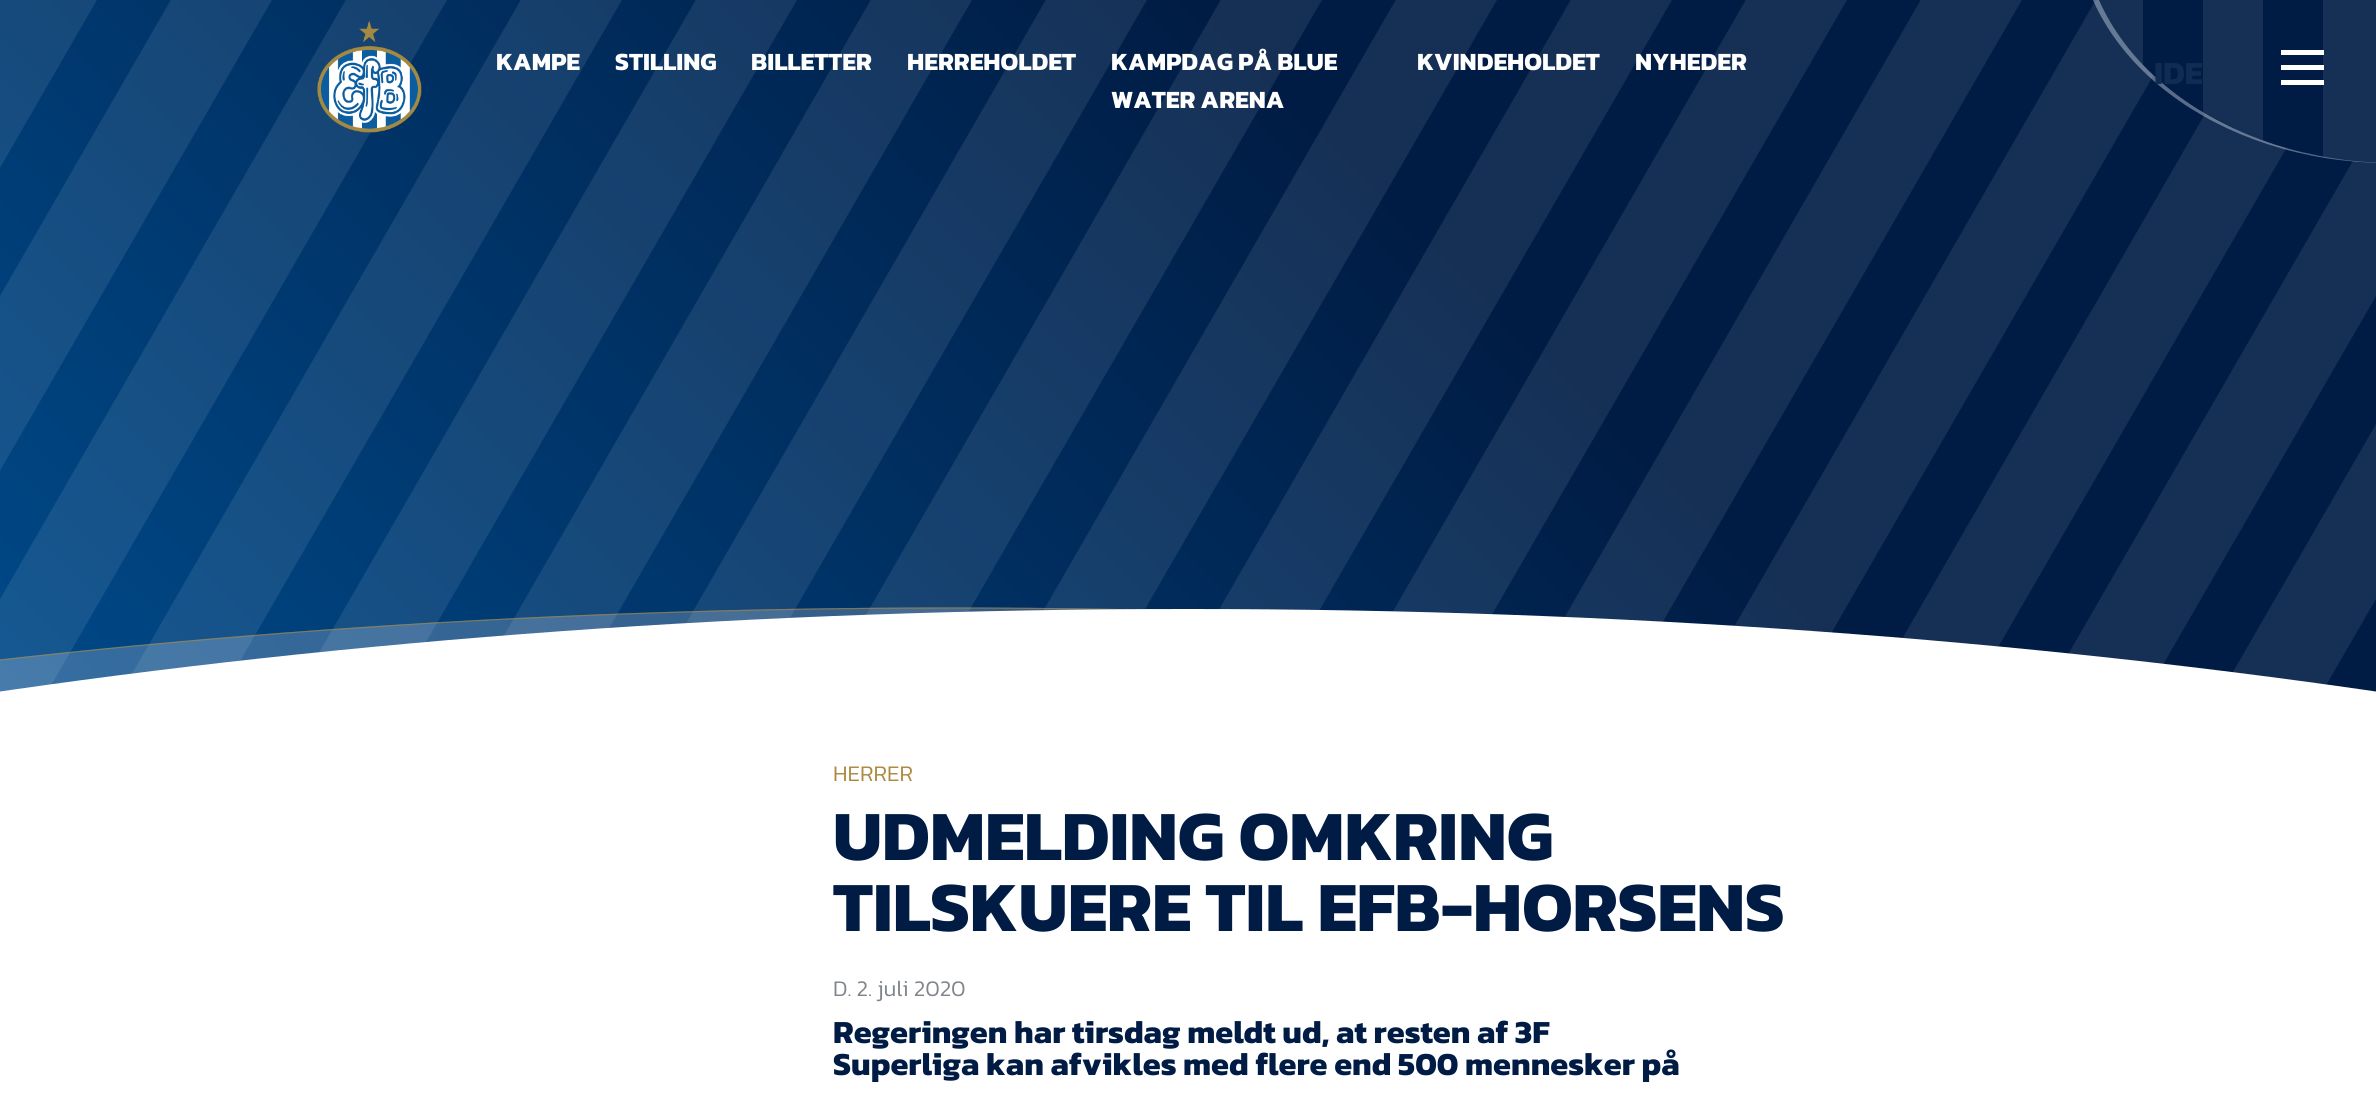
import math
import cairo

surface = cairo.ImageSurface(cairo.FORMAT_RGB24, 2376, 1095)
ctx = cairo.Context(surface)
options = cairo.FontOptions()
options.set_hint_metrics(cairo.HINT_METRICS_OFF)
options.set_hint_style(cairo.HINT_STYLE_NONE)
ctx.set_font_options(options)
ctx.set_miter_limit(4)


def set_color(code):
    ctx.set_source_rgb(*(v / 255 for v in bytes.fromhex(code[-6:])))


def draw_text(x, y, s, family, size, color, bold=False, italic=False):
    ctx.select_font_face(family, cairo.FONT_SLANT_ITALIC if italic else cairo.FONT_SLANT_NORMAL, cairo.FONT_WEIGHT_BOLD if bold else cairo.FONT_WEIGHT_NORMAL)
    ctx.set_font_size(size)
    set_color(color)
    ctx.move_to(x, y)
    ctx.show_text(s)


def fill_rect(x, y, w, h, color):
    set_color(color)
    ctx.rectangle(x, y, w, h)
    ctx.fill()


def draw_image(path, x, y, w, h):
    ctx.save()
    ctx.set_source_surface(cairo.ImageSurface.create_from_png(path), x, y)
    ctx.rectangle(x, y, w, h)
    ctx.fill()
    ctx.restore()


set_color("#ffffff")
ctx.paint()
gradient = cairo.LinearGradient(320, 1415, 2056, -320)
gradient.add_color_stop_rgba(0, 0, 0.325, 0.592, 1)
gradient.add_color_stop_rgba(0.66, 0, 0.11, 0.267, 1)
ctx.set_source(gradient)
ctx.rectangle(0, 0, 2376, 692)
ctx.fill()
ctx.set_source_rgba(0.871, 0.906, 0.965, 0.1)
ctx.new_path()
ctx.move_to(256, -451)
ctx.line_to(332, -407)
ctx.line_to(-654, 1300)
ctx.line_to(-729, 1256)
ctx.close_path()
ctx.fill()
ctx.new_path()
ctx.move_to(431, -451)
ctx.line_to(507, -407)
ctx.line_to(-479, 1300)
ctx.line_to(-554, 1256)
ctx.close_path()
ctx.fill()
ctx.new_path()
ctx.move_to(606, -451)
ctx.line_to(682, -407)
ctx.line_to(-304, 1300)
ctx.line_to(-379, 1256)
ctx.close_path()
ctx.fill()
ctx.new_path()
ctx.move_to(781, -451)
ctx.line_to(857, -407)
ctx.line_to(-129, 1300)
ctx.line_to(-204, 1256)
ctx.close_path()
ctx.fill()
ctx.new_path()
ctx.move_to(956, -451)
ctx.line_to(1032, -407)
ctx.line_to(46, 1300)
ctx.line_to(-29, 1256)
ctx.close_path()
ctx.fill()
ctx.new_path()
ctx.move_to(1131, -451)
ctx.line_to(1207, -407)
ctx.line_to(221, 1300)
ctx.line_to(146, 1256)
ctx.close_path()
ctx.fill()
ctx.new_path()
ctx.move_to(1306, -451)
ctx.line_to(1382, -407)
ctx.line_to(396, 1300)
ctx.line_to(321, 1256)
ctx.close_path()
ctx.fill()
draw_image("assets/img1.png", 317, 20, 105, 113)
draw_text(496, 70, "KAMPE", "Kanit", 25, "#ffffff", bold=True)
ctx.set_source_rgba(0.871, 0.906, 0.965, 0.1)
ctx.new_path()
ctx.move_to(1481, -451)
ctx.line_to(1557, -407)
ctx.line_to(571, 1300)
ctx.line_to(496, 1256)
ctx.close_path()
ctx.fill()
draw_text(615, 70, "STILLING", "Kanit", 25, "#ffffff", bold=True)
ctx.set_source_rgba(0.871, 0.906, 0.965, 0.1)
ctx.new_path()
ctx.move_to(1656, -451)
ctx.line_to(1732, -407)
ctx.line_to(746, 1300)
ctx.line_to(671, 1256)
ctx.close_path()
ctx.fill()
draw_text(751, 70, "BILLETTER", "Kanit", 25, "#ffffff", bold=True)
ctx.set_source_rgba(0.871, 0.906, 0.965, 0.1)
ctx.new_path()
ctx.move_to(1831, -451)
ctx.line_to(1907, -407)
ctx.line_to(921, 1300)
ctx.line_to(846, 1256)
ctx.close_path()
ctx.fill()
draw_text(907, 70, "HERREHOLDET", "Kanit", 25, "#ffffff", bold=True)
ctx.set_source_rgba(0.871, 0.906, 0.965, 0.1)
ctx.new_path()
ctx.move_to(2006, -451)
ctx.line_to(2082, -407)
ctx.line_to(1096, 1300)
ctx.line_to(1021, 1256)
ctx.close_path()
ctx.fill()
ctx.new_path()
ctx.move_to(2181, -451)
ctx.line_to(2257, -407)
ctx.line_to(1271, 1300)
ctx.line_to(1196, 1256)
ctx.close_path()
ctx.fill()
draw_text(1111, 70, "KAMPDAG PÅ BLUE", "Kanit", 25, "#ffffff", bold=True)
draw_text(1111, 108, "WATER ARENA", "Kanit", 25, "#ffffff", bold=True)
ctx.set_source_rgba(0.871, 0.906, 0.965, 0.1)
ctx.new_path()
ctx.move_to(2356, -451)
ctx.line_to(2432, -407)
ctx.line_to(1446, 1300)
ctx.line_to(1371, 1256)
ctx.close_path()
ctx.fill()
draw_text(1417, 70, "KVINDEHOLDET", "Kanit", 25, "#ffffff", bold=True)
ctx.set_source_rgba(0.871, 0.906, 0.965, 0.1)
ctx.new_path()
ctx.move_to(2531, -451)
ctx.line_to(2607, -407)
ctx.line_to(1621, 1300)
ctx.line_to(1546, 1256)
ctx.close_path()
ctx.fill()
draw_text(1635, 70, "NYHEDER", "Kanit", 25, "#ffffff", bold=True)
ctx.set_source_rgba(0.871, 0.906, 0.965, 0.1)
ctx.new_path()
ctx.move_to(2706, -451)
ctx.line_to(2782, -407)
ctx.line_to(1796, 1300)
ctx.line_to(1721, 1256)
ctx.close_path()
ctx.fill()
ctx.set_source_rgba(0.871, 0.906, 0.965, 0.4)
ctx.new_path()
ctx.move_to(2389, -317)
ctx.curve_to(2561.5, -317, 2701.5, -209.5, 2701.5, -77)
ctx.curve_to(2701.5, 55.5, 2561.5, 163, 2389, 163)
ctx.curve_to(2216.5, 163, 2076.5, 55.5, 2076.5, -77)
ctx.curve_to(2076.5, -209.5, 2216.5, -317, 2389, -317)
ctx.close_path()
ctx.fill()
set_color("#001c44")
ctx.new_path()
ctx.move_to(2395, -317)
ctx.curve_to(2567.5, -317, 2707.5, -209.5, 2707.5, -77)
ctx.curve_to(2707.5, 55.5, 2567.5, 163, 2395, 163)
ctx.curve_to(2222.5, 163, 2082.5, 55.5, 2082.5, -77)
ctx.curve_to(2082.5, -209.5, 2222.5, -317, 2395, -317)
ctx.close_path()
ctx.fill()
ctx.set_source_rgba(0.871, 0.906, 0.965, 0.1)
ctx.new_path()
ctx.move_to(2083, -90)
ctx.curve_to(2087, -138, 2108, -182, 2143, -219)
ctx.line_to(2143, 65)
ctx.curve_to(2108, 29, 2087, -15, 2083, -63)
ctx.close_path()
ctx.fill()
ctx.new_path()
ctx.move_to(2203, -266)
ctx.curve_to(2221, -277, 2242, -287, 2263, -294)
ctx.line_to(2263, 141)
ctx.curve_to(2242, 133, 2221, 124, 2203, 113)
ctx.close_path()
ctx.fill()
ctx.new_path()
ctx.move_to(2323, -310)
ctx.curve_to(2343, -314, 2363, -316, 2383, -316)
ctx.line_to(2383, 163)
ctx.curve_to(2362, 162, 2342, 160, 2323, 157)
ctx.close_path()
ctx.fill()
draw_text(2154, 84, "IDE", "Kanit", 32.5, "#112c52", bold=True)
fill_rect(2281, 50, 43, 5, "#ffffff")
fill_rect(2281, 65, 43, 5, "#ffffff")
fill_rect(2281, 80, 43, 5, "#ffffff")
ctx.set_source_rgba(0.871, 0.906, 0.965, 0.1)
ctx.new_path()
ctx.move_to(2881, -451)
ctx.line_to(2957, -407)
ctx.line_to(1971, 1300)
ctx.line_to(1896, 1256)
ctx.close_path()
ctx.fill()
ctx.save()
ctx.rectangle(0, 0, 2376, 713)
ctx.clip()
ctx.set_source_rgba(0.871, 0.906, 0.965, 0.24)
ctx.new_path()
ctx.move_to(950.5, 607.5)
ctx.curve_to(2670, 607.5, 4063.5, 1097.5, 4063.5, 1702.5)
ctx.curve_to(4063.5, 2307.5, 2670, 2797.5, 950.5, 2797.5)
ctx.curve_to(-769, 2797.5, -2162.5, 2307.5, -2162.5, 1702.5)
ctx.curve_to(-2162.5, 1097.5, -769, 607.5, 950.5, 607.5)
ctx.close_path()
ctx.fill()
ctx.new_path()
ctx.move_to(950.5, 608)
ctx.curve_to(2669.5, 608, 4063, 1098, 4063, 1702.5)
ctx.curve_to(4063, 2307, 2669.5, 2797, 950.5, 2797)
ctx.curve_to(-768.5, 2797, -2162, 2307, -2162, 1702.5)
ctx.curve_to(-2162, 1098, -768.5, 608, 950.5, 608)
ctx.close_path()
ctx.set_source_rgba(0.678, 0.537, 0.247, 0.6)
ctx.set_line_width(1.2)
ctx.stroke()
set_color("#ffffff")
ctx.new_path()
ctx.move_to(1188, 609)
ctx.curve_to(2907.5, 609, 4301, 1099, 4301, 1704)
ctx.curve_to(4301, 2309, 2907.5, 2799, 1188, 2799)
ctx.curve_to(-531.5, 2799, -1925, 2309, -1925, 1704)
ctx.curve_to(-1925, 1099, -531.5, 609, 1188, 609)
ctx.close_path()
ctx.fill()
ctx.restore()
fill_rect(0, 713, 2309, 382, "#ffffff")
draw_text(833, 781, "HERRER", "Kanit Light", 22.5, "#ad893f")
draw_text(833, 860, "UDMELDING OMKRING", "Kanit", 71.25, "#001c44", bold=True)
draw_text(833, 931, "TILSKUERE TIL EFB-HORSENS", "Kanit", 71.25, "#001c44", bold=True)
draw_text(833, 996, "D. 2. juli 2020", "Kanit Light", 22.5, "#80848b")
draw_text(833, 1043, "Regeringen har tirsdag meldt ud, at resten af 3F", "Kanit", 32.5, "#001c44", bold=True)
draw_text(833, 1075, "Superliga kan afvikles med flere end 500 mennesker på", "Kanit", 32.5, "#001c44", bold=True)
surface.write_to_png("output.png")
